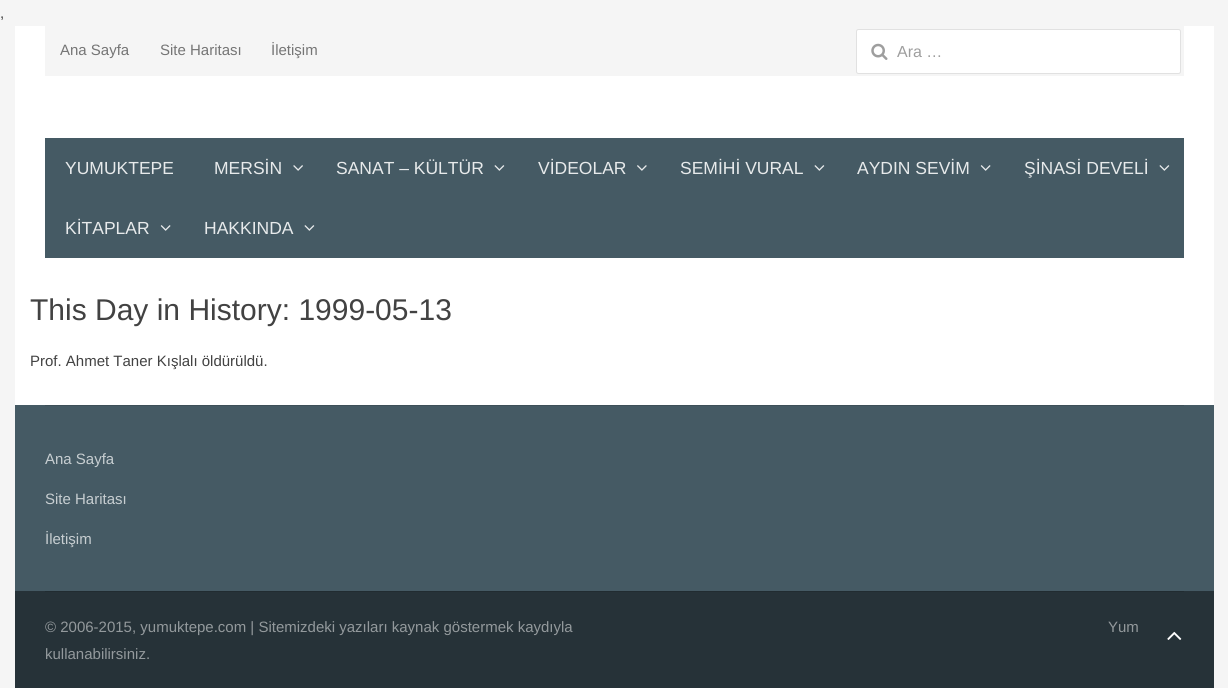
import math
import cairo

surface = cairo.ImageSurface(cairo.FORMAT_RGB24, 1228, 688)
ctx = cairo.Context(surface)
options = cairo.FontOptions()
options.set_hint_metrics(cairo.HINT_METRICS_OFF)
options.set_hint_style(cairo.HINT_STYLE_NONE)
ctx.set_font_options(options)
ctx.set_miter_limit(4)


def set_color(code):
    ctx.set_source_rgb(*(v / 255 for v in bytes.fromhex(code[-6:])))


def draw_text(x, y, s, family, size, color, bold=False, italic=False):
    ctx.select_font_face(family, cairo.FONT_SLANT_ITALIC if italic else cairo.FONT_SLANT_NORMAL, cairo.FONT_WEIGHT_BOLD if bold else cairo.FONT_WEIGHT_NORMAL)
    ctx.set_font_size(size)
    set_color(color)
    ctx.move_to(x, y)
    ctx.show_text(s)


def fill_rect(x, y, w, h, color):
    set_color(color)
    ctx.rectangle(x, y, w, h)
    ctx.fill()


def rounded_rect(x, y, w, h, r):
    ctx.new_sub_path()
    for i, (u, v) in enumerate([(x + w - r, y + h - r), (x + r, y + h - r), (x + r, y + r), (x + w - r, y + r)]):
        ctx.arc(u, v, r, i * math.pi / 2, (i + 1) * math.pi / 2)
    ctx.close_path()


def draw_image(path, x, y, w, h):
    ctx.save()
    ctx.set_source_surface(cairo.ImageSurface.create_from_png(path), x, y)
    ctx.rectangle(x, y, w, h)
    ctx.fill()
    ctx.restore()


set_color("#f5f5f5")
ctx.paint()
draw_text(0, 18, ",", "Liberation Sans", 15, "#424242")
fill_rect(15, 26, 1199, 379, "#ffffff")
fill_rect(45, 26, 1139, 50, "#f5f5f5")
draw_text(60, 55, "Ana Sayfa", "Liberation Sans", 15, "#757575")
draw_text(160, 55, "Site Haritası", "Liberation Sans", 15, "#757575")
draw_text(271, 55, "İletişim", "Liberation Sans", 15, "#757575")
set_color("#ffffff")
rounded_rect(856, 29, 325, 45, 2.5)
ctx.fill()
rounded_rect(856.5, 29.5, 324, 44, 2)
ctx.set_source_rgba(0, 0, 0, 0.12)
ctx.set_line_width(1)
ctx.stroke()
draw_image("assets/img1.png", 871, 43, 17, 17)
draw_text(897, 57, "Ara …", "Liberation Sans", 16, "#9e9e9e")
fill_rect(45, 138, 1139, 120, "#455a64")
draw_text(65, 174, "YUMUKTEPE", "Liberation Sans", 17.5, "#e7eaeb")
draw_text(214, 174, "MERSİN", "Liberation Sans", 17.5, "#e7eaeb")
draw_image("assets/img2.png", 293, 165, 10, 6)
draw_text(336, 174, "SANAT – KÜLTÜR", "Liberation Sans", 17.5, "#e7eaeb")
draw_image("assets/img3.png", 494, 165, 11, 6)
draw_text(538, 174, "VİDEOLAR", "Liberation Sans", 17.5, "#e7eaeb")
draw_image("assets/img4.png", 637, 165, 10, 6)
draw_text(680, 174, "SEMİHİ VURAL", "Liberation Sans", 17.5, "#e7eaeb")
draw_image("assets/img3.png", 814, 165, 11, 6)
draw_text(857, 174, "AYDIN SEVİM", "Liberation Sans", 17.5, "#e7eaeb")
draw_image("assets/img5.png", 980, 165, 11, 6)
draw_text(1024, 174, "ŞİNASİ DEVELİ", "Liberation Sans", 17.5, "#e7eaeb")
draw_image("assets/img3.png", 1159, 165, 11, 6)
draw_text(65, 234, "KİTAPLAR", "Liberation Sans", 17.5, "#e7eaeb")
draw_image("assets/img5.png", 160, 225, 11, 6)
draw_text(204, 234, "HAKKINDA", "Liberation Sans", 17.5, "#e7eaeb")
draw_image("assets/img3.png", 304, 225, 11, 6)
draw_text(30, 320, "This Day in History: 1999-05-13", "Liberation Sans", 30, "#424242")
draw_text(30, 366, "Prof. Ahmet Taner Kışlalı öldürüldü.", "Liberation Sans", 15, "#424242")
fill_rect(15, 405, 1199, 186, "#455a64")
fill_rect(45, 405, 1139, 1, "#3d4f58")
draw_text(45, 464, "Ana Sayfa", "Liberation Sans", 15, "#c7ced1")
draw_text(45, 504, "Site Haritası", "Liberation Sans", 15, "#c7ced1")
draw_text(45, 544, "İletişim", "Liberation Sans", 15, "#c7ced1")
fill_rect(15, 591, 1199, 97, "#263238")
fill_rect(45, 591, 1139, 1, "#212c31")
draw_text(45, 632, "© 2006-2015, yumuktepe.com | Sitemizdeki yazıları kaynak göstermek kaydıyla", "Liberation Sans", 15, "#93999c")
draw_text(45, 659, "kullanabilirsiniz.", "Liberation Sans", 15, "#93999c")
draw_text(1108, 632, "Yum", "Liberation Sans", 15, "#93999c")
draw_image("assets/img6.png", 1167, 631, 15, 9)
surface.write_to_png("output.png")
